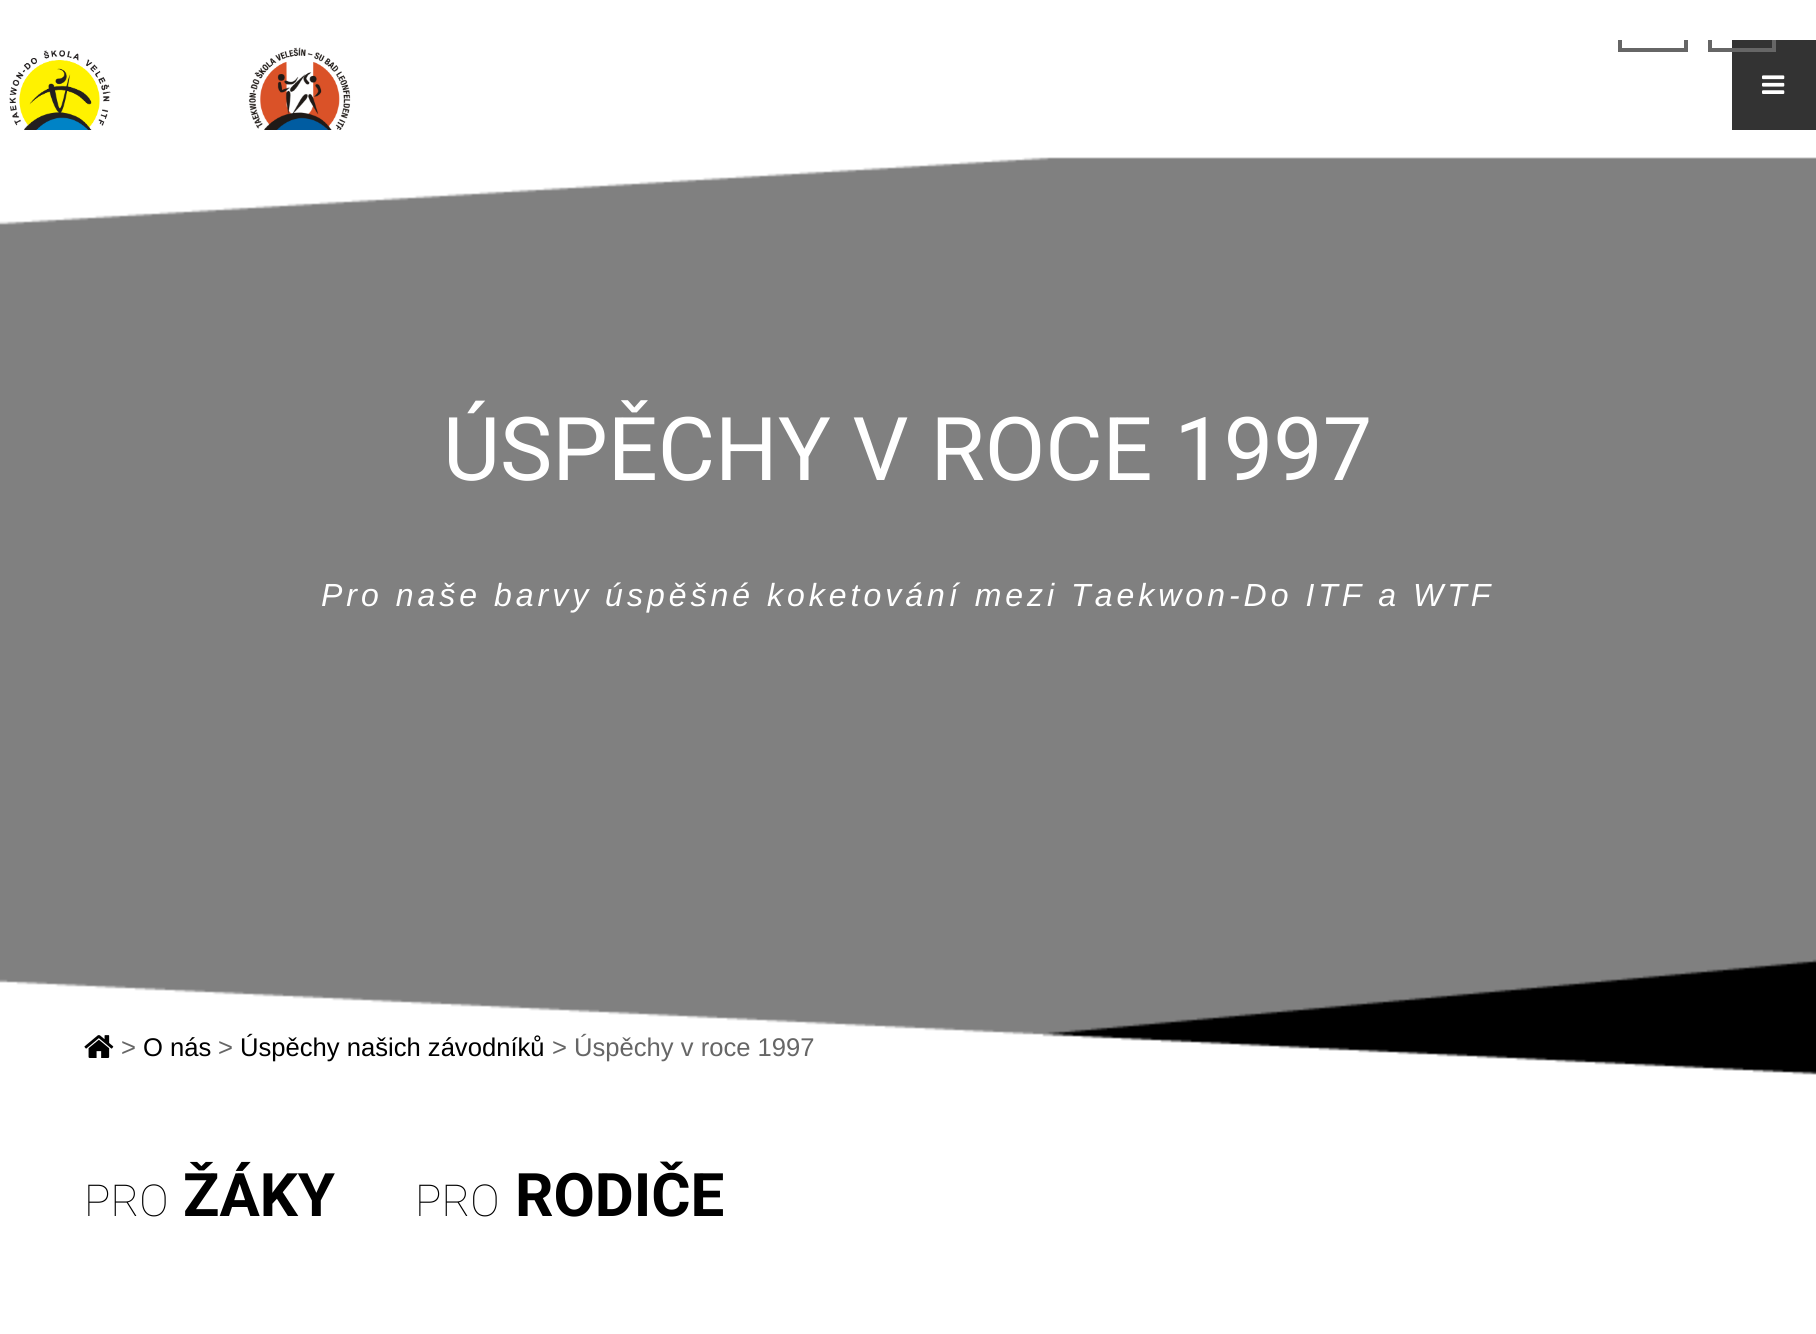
import math
import cairo

surface = cairo.ImageSurface(cairo.FORMAT_RGB24, 1816, 1334)
ctx = cairo.Context(surface)
options = cairo.FontOptions()
options.set_hint_metrics(cairo.HINT_METRICS_OFF)
options.set_hint_style(cairo.HINT_STYLE_NONE)
ctx.set_font_options(options)
ctx.set_miter_limit(4)


def set_color(code):
    ctx.set_source_rgb(*(v / 255 for v in bytes.fromhex(code[-6:])))


def draw_text(x, y, s, family, size, color, bold=False, italic=False):
    ctx.select_font_face(family, cairo.FONT_SLANT_ITALIC if italic else cairo.FONT_SLANT_NORMAL, cairo.FONT_WEIGHT_BOLD if bold else cairo.FONT_WEIGHT_NORMAL)
    ctx.set_font_size(size)
    set_color(color)
    ctx.move_to(x, y)
    ctx.show_text(s)


def draw_spaced(x, y, s, letter, word):
    ctx.move_to(x, y)
    for ch in s:
        ctx.show_text(ch)
        ctx.rel_move_to(letter + word * (ch == ' '), 0)


def fill_rect(x, y, w, h, color):
    set_color(color)
    ctx.rectangle(x, y, w, h)
    ctx.fill()


def draw_image(path, x, y, w, h):
    ctx.save()
    ctx.set_source_surface(cairo.ImageSurface.create_from_png(path), x, y)
    ctx.rectangle(x, y, w, h)
    ctx.fill()
    ctx.restore()


set_color("#ffffff")
ctx.paint()
fill_rect(0, 157, 1816, 878, "#808080")
draw_image("assets/img1.png", 0, 0, 1816, 225)
ctx.save()
ctx.rectangle(0, 40, 1816, 90)
ctx.clip()
ctx.rectangle(1620, -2, 66, 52)
set_color("#666666")
ctx.set_line_width(4)
ctx.stroke()
ctx.restore()
fill_rect(1732, 40, 84, 90, "#333333")
ctx.save()
ctx.rectangle(0, 40, 1816, 90)
ctx.clip()
ctx.rectangle(1710, -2, 64, 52)
set_color("#666666")
ctx.set_line_width(4)
ctx.stroke()
ctx.restore()
draw_image("assets/img2.png", 9, 50, 102, 80)
draw_image("assets/img3.png", 248, 47, 103, 83)
draw_image("assets/img4.png", 1762, 75, 23, 19)
draw_text(443, 480, "ÚSPĚCHY V ROCE 1997", "Roboto", 88, "#ffffff")
ctx.select_font_face("Liberation Sans", cairo.FONT_SLANT_ITALIC)
ctx.set_font_size(32)
draw_spaced(321, 606, "Pro naše barvy úspěšné koketování mezi Taekwon-Do ITF a WTF", 4, 0)
draw_image("assets/img5.png", 0, 959, 1816, 141)
draw_image("assets/img6.png", 84, 1035, 30, 23)
draw_text(121, 1056, ">", "Liberation Sans", 25.6, "#666666")
draw_text(143, 1056, "O nás", "Liberation Sans", 25.6, "#000000")
draw_text(218, 1056, ">", "Liberation Sans", 25.6, "#666666")
draw_text(240, 1056, "Úspěchy našich závodníků", "Liberation Sans", 25.6, "#000000")
draw_text(552, 1056, "> Úspěchy v roce 1997", "Liberation Sans", 25.6, "#666666")
draw_text(84, 1216, "PRO", "Roboto Thin", 44, "#000000")
draw_text(183, 1216, "ŽÁKY", "Roboto", 60, "#000000", bold=True)
draw_text(415, 1216, "PRO", "Roboto Thin", 44, "#000000")
draw_text(515, 1216, "RODIČE", "Roboto", 60, "#000000", bold=True)
surface.write_to_png("output.png")
